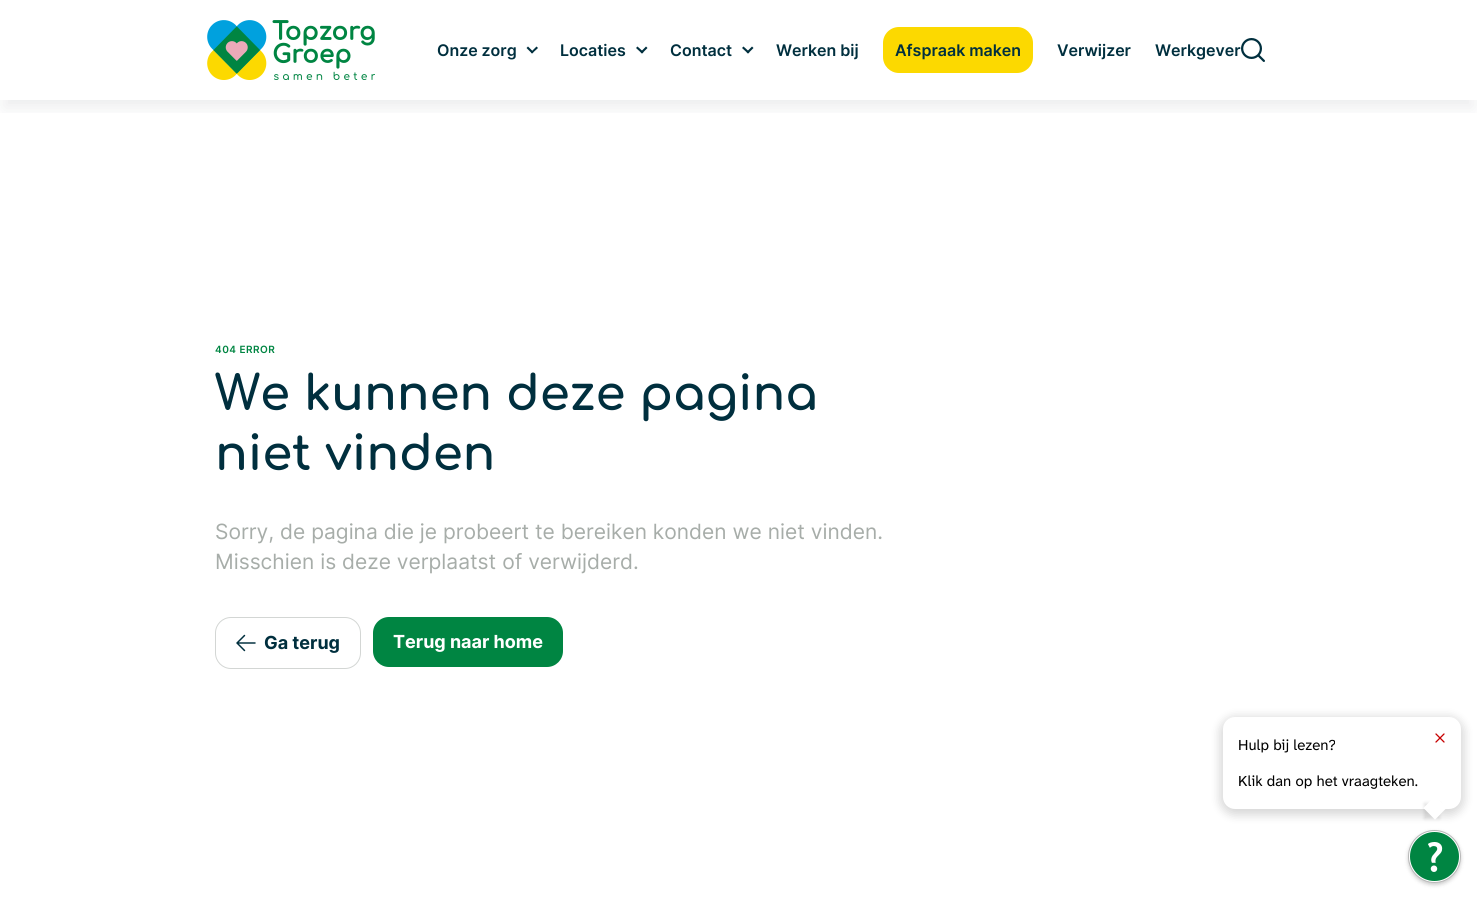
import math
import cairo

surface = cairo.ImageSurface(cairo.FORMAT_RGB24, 1477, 899)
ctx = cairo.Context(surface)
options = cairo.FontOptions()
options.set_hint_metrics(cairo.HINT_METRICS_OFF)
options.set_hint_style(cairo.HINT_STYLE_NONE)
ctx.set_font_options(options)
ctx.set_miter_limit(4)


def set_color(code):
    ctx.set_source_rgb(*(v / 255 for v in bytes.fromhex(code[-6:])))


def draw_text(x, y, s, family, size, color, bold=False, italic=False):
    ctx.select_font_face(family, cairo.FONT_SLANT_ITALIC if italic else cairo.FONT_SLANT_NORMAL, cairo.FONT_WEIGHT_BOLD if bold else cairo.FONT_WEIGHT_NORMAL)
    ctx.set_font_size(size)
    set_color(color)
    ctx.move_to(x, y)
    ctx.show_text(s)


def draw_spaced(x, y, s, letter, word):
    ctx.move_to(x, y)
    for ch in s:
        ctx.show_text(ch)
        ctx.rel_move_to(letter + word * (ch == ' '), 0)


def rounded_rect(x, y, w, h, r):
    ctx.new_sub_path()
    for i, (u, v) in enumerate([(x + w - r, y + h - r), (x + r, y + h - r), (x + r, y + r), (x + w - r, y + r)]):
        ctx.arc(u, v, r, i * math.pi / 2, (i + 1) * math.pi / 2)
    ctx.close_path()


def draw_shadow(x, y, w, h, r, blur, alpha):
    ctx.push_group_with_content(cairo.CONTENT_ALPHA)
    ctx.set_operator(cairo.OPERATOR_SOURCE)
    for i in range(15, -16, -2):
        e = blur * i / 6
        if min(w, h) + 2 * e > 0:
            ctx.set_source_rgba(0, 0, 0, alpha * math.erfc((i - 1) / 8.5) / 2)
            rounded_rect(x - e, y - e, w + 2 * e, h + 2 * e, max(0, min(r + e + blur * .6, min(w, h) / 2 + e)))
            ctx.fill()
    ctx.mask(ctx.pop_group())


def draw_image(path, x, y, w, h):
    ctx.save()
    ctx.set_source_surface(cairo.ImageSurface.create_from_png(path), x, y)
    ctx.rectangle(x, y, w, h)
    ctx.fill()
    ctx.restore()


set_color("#ffffff")
ctx.paint()
ctx.save()
ctx.rectangle(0, 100, 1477, 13)
ctx.clip()
set_color("#101828")
draw_shadow(4, 16, 1469, 92, 0, 8, 0.08)
ctx.restore()
draw_image("assets/img1.png", 207, 20, 168, 60)
draw_text(437, 56, "Onze zorg", "Inter SemiBold", 16, "#002f3e")
ctx.new_path()
ctx.move_to(536.5, 46.5)
ctx.line_to(538, 48)
ctx.line_to(532, 53.5)
ctx.line_to(531, 52)
ctx.close_path()
ctx.fill()
ctx.new_path()
ctx.move_to(528, 46.5)
ctx.line_to(533.5, 52)
ctx.line_to(532, 53.5)
ctx.line_to(526.5, 48)
ctx.close_path()
ctx.fill()
draw_text(560, 56, "Locaties", "Inter SemiBold", 16, "#002f3e")
ctx.new_path()
ctx.move_to(646, 46.5)
ctx.line_to(647.5, 48)
ctx.line_to(642, 53.5)
ctx.line_to(640.5, 52)
ctx.close_path()
ctx.fill()
ctx.new_path()
ctx.move_to(637.5, 46.5)
ctx.line_to(643.5, 52)
ctx.line_to(642, 53.5)
ctx.line_to(636, 48)
ctx.close_path()
ctx.fill()
draw_text(670, 56, "Contact", "Inter SemiBold", 16, "#002f3e")
ctx.new_path()
ctx.move_to(752, 46.5)
ctx.line_to(753.5, 48)
ctx.line_to(748, 53.5)
ctx.line_to(746.5, 52)
ctx.close_path()
ctx.fill()
ctx.new_path()
ctx.move_to(743.5, 46.5)
ctx.line_to(749.5, 52)
ctx.line_to(748, 53.5)
ctx.line_to(742, 48)
ctx.close_path()
ctx.fill()
draw_text(776, 56, "Werken bij", "Inter SemiBold", 16, "#002f3e")
set_color("#fcd900")
rounded_rect(883, 27, 150, 46, 16)
ctx.fill()
draw_text(895, 56, "Afspraak maken", "Inter SemiBold", 16, "#002f3e")
draw_text(1057, 56, "Verwijzer", "Inter SemiBold", 16, "#002f3e")
draw_text(1155, 56, "Werkgever", "Inter SemiBold", 16, "#002f3e")
draw_image("assets/img2.png", 1241, 38, 24, 24)
ctx.set_font_size(10)
set_color("#008542")
draw_spaced(215, 353, "404 ERROR", 0.5, 0)
draw_text(215, 410, "We kunnen deze pagina", "Comfortaa", 48, "#002f3e", bold=True)
draw_text(215, 470, "niet vinden", "Comfortaa", 48, "#002f3e", bold=True)
draw_text(215, 539, "Sorry, de pagina die je probeert te bereiken konden we niet vinden.", "Inter", 21, "#a7ada9")
draw_text(215, 569, "Misschien is deze verplaatst of verwijderd.", "Inter", 21, "#a7ada9")
rounded_rect(215.5, 617.5, 145, 51, 15.5)
set_color("#d3d6d4")
ctx.set_line_width(1)
ctx.stroke()
draw_image("assets/img3.png", 236, 634, 20, 18)
draw_text(264, 649, "Ga terug", "Inter", 18, "#002f3e", bold=True)
set_color("#008542")
rounded_rect(373, 617, 190, 50, 16)
ctx.fill()
draw_text(393, 648, "Terug naar home", "Inter", 18, "#ffffff", bold=True)
set_color("#000000")
draw_shadow(1408, 832, 53, 53, 26.5, 2, 0.2)
set_color("#ffffff")
ctx.arc(1434.5, 856.5, 26, 0, 2 * math.pi)
ctx.fill_preserve()
set_color("#b8b8b8")
ctx.stroke()
set_color("#000000")
draw_shadow(1220, 717, 244, 98, 15, 5, 0.16)
set_color("#ffffff")
rounded_rect(1223, 717, 238, 92, 12)
ctx.fill()
ctx.new_path()
ctx.move_to(1444, 734)
ctx.line_to(1436, 742)
ctx.move_to(1436, 734)
ctx.line_to(1444, 742)
set_color("#c70000")
ctx.set_line_width(1.3)
ctx.set_line_cap(cairo.LINE_CAP_ROUND)
ctx.set_line_join(cairo.LINE_JOIN_ROUND)
ctx.stroke()
draw_text(1238, 750, "Hulp bij lezen?", "Atkinson Hyperlegible Next", 15, "#000000")
draw_text(1238, 786, "Klik dan op het vraagteken.", "Atkinson Hyperlegible Next", 15, "#000000")
ctx.save()
ctx.set_fill_rule(cairo.FILL_RULE_EVEN_ODD)
ctx.new_path()
ctx.move_to(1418, 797)
ctx.line_to(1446, 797)
ctx.line_to(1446, 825)
ctx.line_to(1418, 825)
ctx.close_path()
ctx.move_to(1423.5, 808)
ctx.line_to(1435, 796.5)
ctx.line_to(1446.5, 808)
ctx.line_to(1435, 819.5)
ctx.close_path()
ctx.clip()
set_color("#000000")
draw_shadow(1424, 803, 16, 16, 0, 1.5, 0.1)
ctx.restore()
set_color("#ffffff")
ctx.new_path()
ctx.move_to(1446.5, 808)
ctx.line_to(1435, 819.5)
ctx.line_to(1435, 808)
ctx.close_path()
ctx.move_to(1435, 819.5)
ctx.line_to(1423.5, 808)
ctx.line_to(1435, 808)
ctx.close_path()
ctx.fill()
set_color("#008542")
ctx.arc(1434.5, 856.5, 24.5, 0, 2 * math.pi)
ctx.fill()
draw_image("assets/img4.png", 1428, 842, 15, 30)
surface.write_to_png("output.png")
